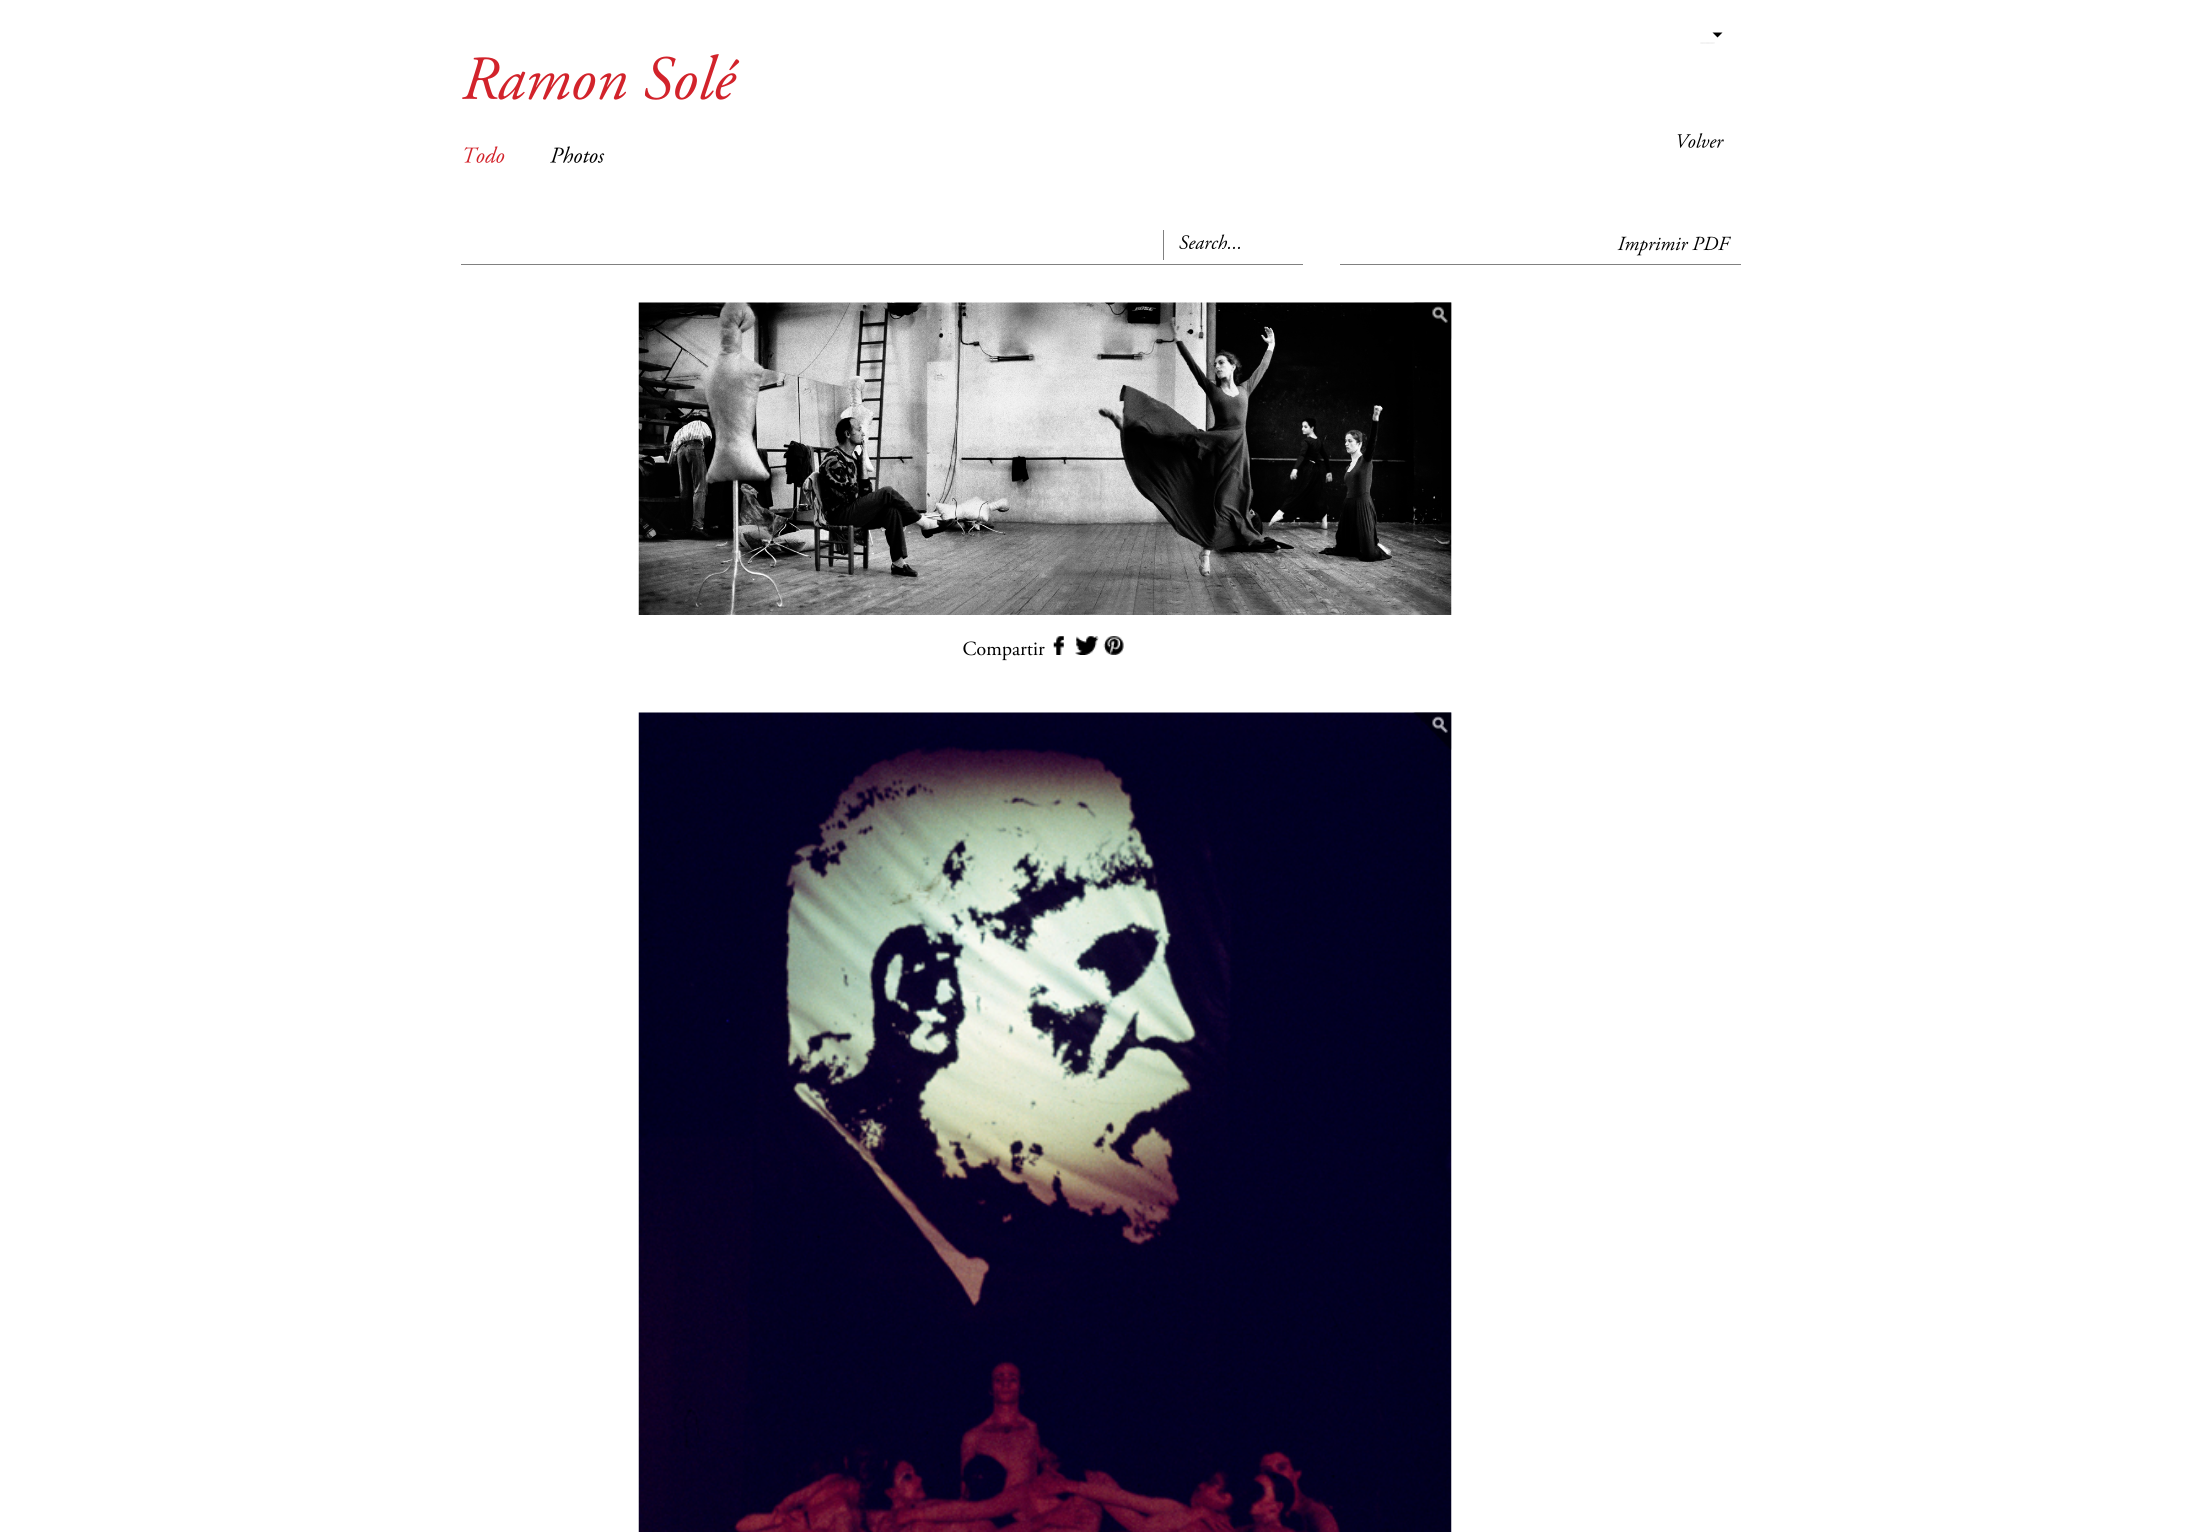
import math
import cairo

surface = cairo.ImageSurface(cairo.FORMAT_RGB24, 2202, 1532)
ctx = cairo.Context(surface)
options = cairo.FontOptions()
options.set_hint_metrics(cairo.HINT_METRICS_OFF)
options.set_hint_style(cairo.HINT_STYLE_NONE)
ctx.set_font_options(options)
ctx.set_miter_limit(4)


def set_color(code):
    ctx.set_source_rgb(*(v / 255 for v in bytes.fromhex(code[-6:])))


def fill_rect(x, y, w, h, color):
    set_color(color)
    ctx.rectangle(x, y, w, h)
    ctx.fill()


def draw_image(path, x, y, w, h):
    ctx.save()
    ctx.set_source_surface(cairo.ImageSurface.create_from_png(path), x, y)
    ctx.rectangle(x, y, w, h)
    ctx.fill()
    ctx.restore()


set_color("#ffffff")
ctx.paint()
draw_image("assets/img1.png", 1700, 42, 15, 2)
set_color("#000000")
ctx.new_path()
ctx.move_to(1712.5, 32.5)
ctx.line_to(1722.5, 32.5)
ctx.line_to(1717.5, 37.5)
ctx.close_path()
ctx.fill()
draw_image("assets/img2.png", 1677, 133, 47, 15)
draw_image("assets/img3.png", 462, 54, 278, 46)
draw_image("assets/img4.png", 464, 146, 41, 17)
draw_image("assets/img5.png", 550, 146, 55, 17)
fill_rect(461, 264, 842, 1, "#808080")
fill_rect(1163, 230, 1, 30, "#808080")
draw_image("assets/img6.png", 1179, 234, 61, 16)
fill_rect(1340, 264, 401, 1, "#808080")
draw_image("assets/img7.png", 1617, 236, 114, 20)
draw_image("assets/img8.png", 638, 302, 814, 313)
draw_image("assets/img9.png", 1413, 302, 39, 38)
draw_image("assets/img10.png", 963, 641, 82, 20)
draw_image("assets/img11.png", 1053, 636, 11, 19)
draw_image("assets/img12.png", 1075, 636, 24, 19)
draw_image("assets/img13.png", 1103, 636, 21, 19)
draw_image("assets/img14.png", 638, 712, 814, 820)
draw_image("assets/img15.png", 1413, 712, 39, 38)
surface.write_to_png("output.png")
